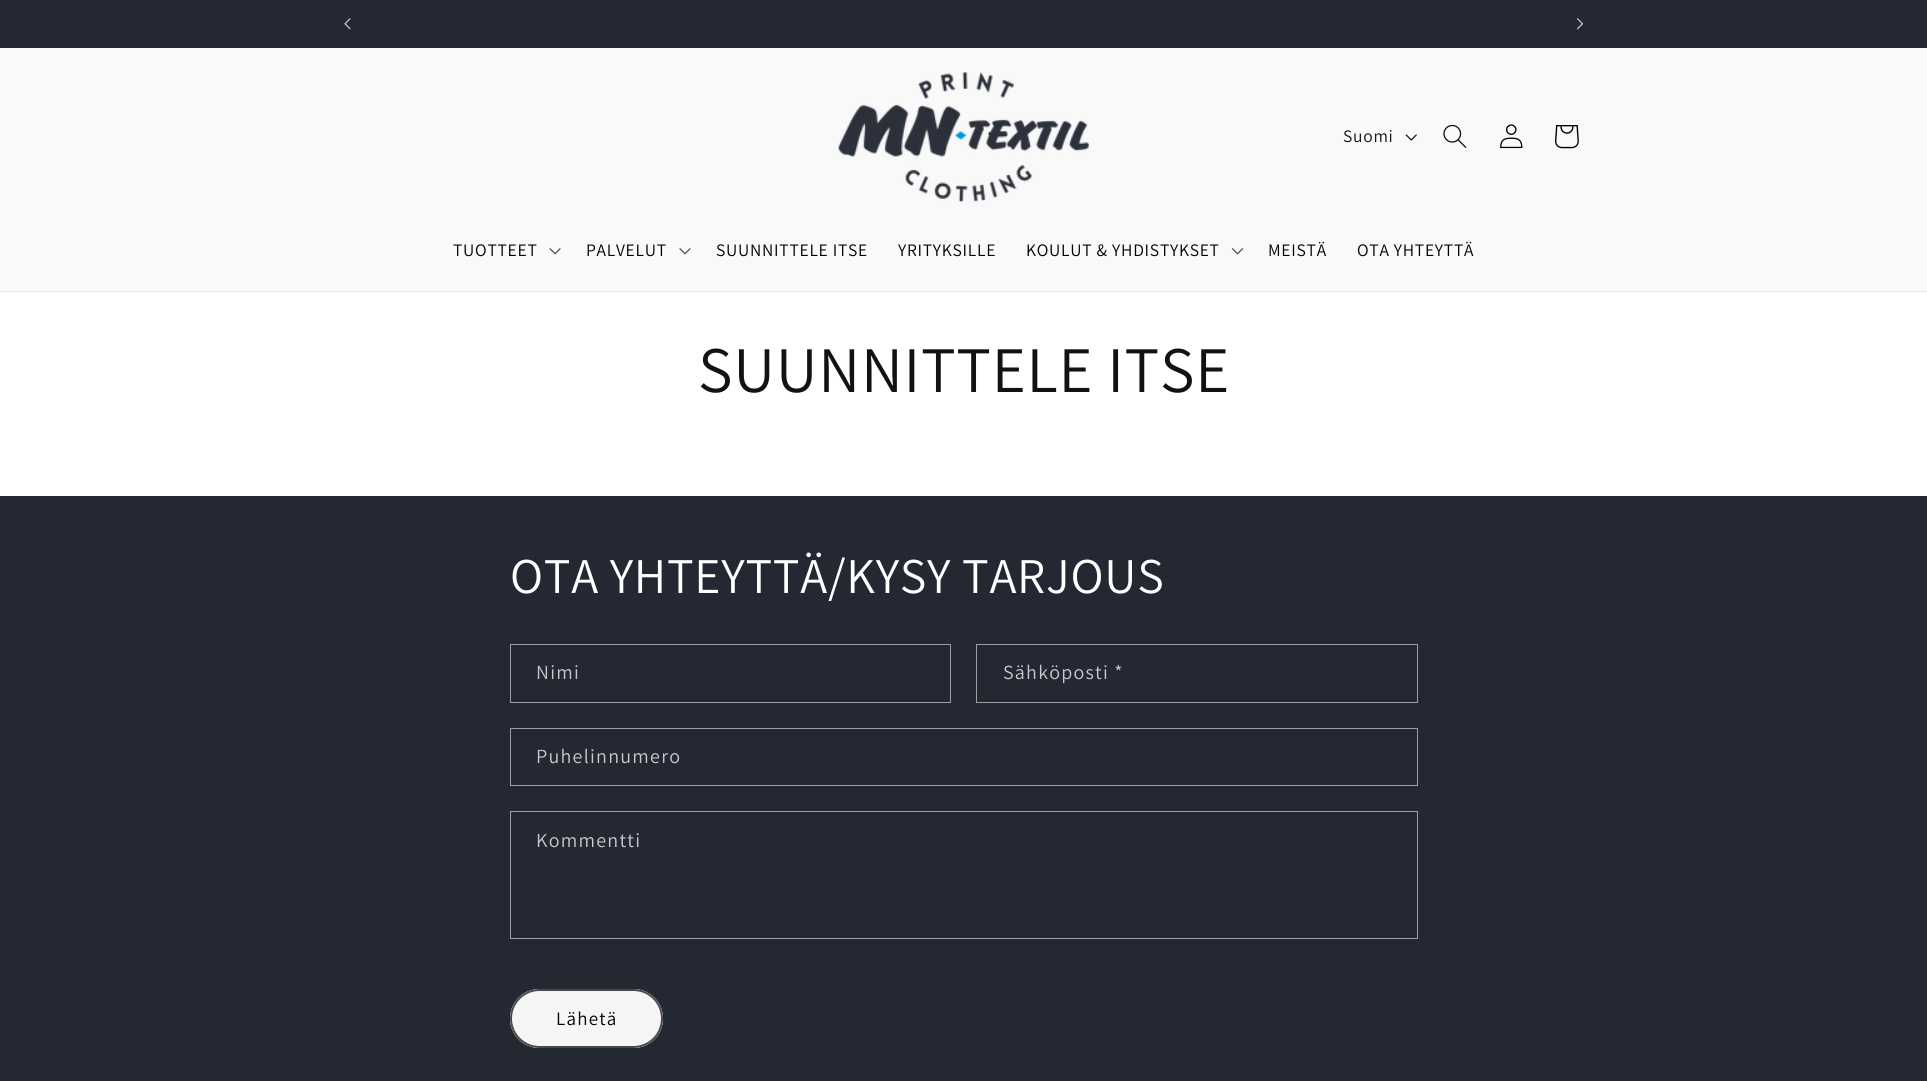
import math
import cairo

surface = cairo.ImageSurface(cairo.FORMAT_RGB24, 1927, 1081)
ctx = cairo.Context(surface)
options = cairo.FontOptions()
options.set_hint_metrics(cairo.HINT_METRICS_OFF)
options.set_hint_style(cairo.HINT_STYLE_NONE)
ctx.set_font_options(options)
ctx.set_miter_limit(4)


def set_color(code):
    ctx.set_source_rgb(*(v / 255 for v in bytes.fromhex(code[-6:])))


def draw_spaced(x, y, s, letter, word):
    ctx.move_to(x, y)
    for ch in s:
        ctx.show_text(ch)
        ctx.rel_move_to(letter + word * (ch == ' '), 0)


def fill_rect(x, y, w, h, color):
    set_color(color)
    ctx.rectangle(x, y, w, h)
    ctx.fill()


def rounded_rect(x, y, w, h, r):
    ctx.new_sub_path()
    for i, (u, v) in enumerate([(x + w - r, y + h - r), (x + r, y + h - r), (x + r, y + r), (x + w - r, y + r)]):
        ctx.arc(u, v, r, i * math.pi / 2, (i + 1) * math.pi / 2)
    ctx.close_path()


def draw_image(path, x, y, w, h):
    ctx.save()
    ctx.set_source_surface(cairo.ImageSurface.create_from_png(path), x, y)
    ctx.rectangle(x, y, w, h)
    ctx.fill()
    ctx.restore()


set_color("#ffffff")
ctx.paint()
fill_rect(0, 0, 1927, 48, "#242833")
draw_image("assets/img1.png", 344, 18, 7, 12)
draw_image("assets/img2.png", 1576, 18, 7, 12)
fill_rect(0, 48, 1927, 245, "#f9f9f9")
fill_rect(0, 291, 1927, 1, "#e7e7e7")
draw_image("assets/img3.png", 838, 72, 251, 130)
ctx.select_font_face("Assistant")
ctx.set_font_size(17.5)
set_color("#121212")
draw_spaced(1343, 142, "Suomi", 0.75, 0)
draw_image("assets/img4.png", 1405, 134, 12, 7)
draw_image("assets/img5.png", 1500, 124, 23, 25)
draw_image("assets/img6.png", 1555, 125, 24, 24)
draw_image("assets/img7.png", 1443, 124, 24, 24)
set_color("#000000")
draw_spaced(453, 256, "TUOTTEET", 0.75, 0)
draw_image("assets/img8.png", 549, 248, 12, 7)
draw_spaced(586, 256, "PALVELUT", 0.75, 0)
draw_image("assets/img8.png", 679, 248, 12, 7)
draw_spaced(716, 256, "SUUNNITTELE ITSE", 0.75, 0)
draw_spaced(898, 256, "YRITYKSILLE", 0.75, 0)
draw_spaced(1026, 256, "KOULUT & YHDISTYKSET", 0.75, 0)
draw_image("assets/img9.png", 1231, 248, 13, 7)
draw_spaced(1268, 256, "MEISTÄ", 0.75, 0)
draw_spaced(1357, 256, "OTA YHTEYTTÄ", 0.75, 0)
ctx.set_font_size(65)
set_color("#121212")
draw_spaced(698, 392, "SUUNNITTELE ITSE", 0.75, 0)
fill_rect(0, 496, 1927, 585, "#242833")
ctx.set_font_size(50)
set_color("#ffffff")
draw_spaced(510, 593, "OTA YHTEYTTÄ/KYSY TARJOUS", 0.75, 0)
ctx.rectangle(510.5, 644.5, 440, 58)
set_color("#9c9ea3")
ctx.set_line_width(1)
ctx.stroke()
ctx.set_font_size(20)
set_color("#c8c9cc")
draw_spaced(536, 679, "Nimi", 1.25, 0)
ctx.rectangle(976.5, 644.5, 441, 58)
set_color("#9c9ea3")
ctx.stroke()
set_color("#c8c9cc")
draw_spaced(1003, 679, "Sähköposti *", 1.25, 0)
ctx.rectangle(510.5, 728.5, 907, 57)
set_color("#9c9ea3")
ctx.stroke()
set_color("#c8c9cc")
draw_spaced(536, 763, "Puhelinnumero", 1.25, 0)
ctx.rectangle(510.5, 811.5, 907, 127)
set_color("#9c9ea3")
ctx.stroke()
set_color("#c8c9cc")
draw_spaced(536, 847, "Kommentti", 1.25, 0)
set_color("#f5f5f5")
rounded_rect(510, 989, 153, 59, 29.5)
ctx.fill()
rounded_rect(510.5, 989.5, 152, 58, 29)
ctx.stroke()
rounded_rect(511, 990, 151, 57, 28.5)
ctx.set_source_rgba(0, 0, 0, 0.7)
ctx.set_line_width(2)
ctx.stroke()
ctx.set_font_size(19)
set_color("#000000")
draw_spaced(556, 1025, "Lähetä", 1.25, 0)
surface.write_to_png("output.png")
